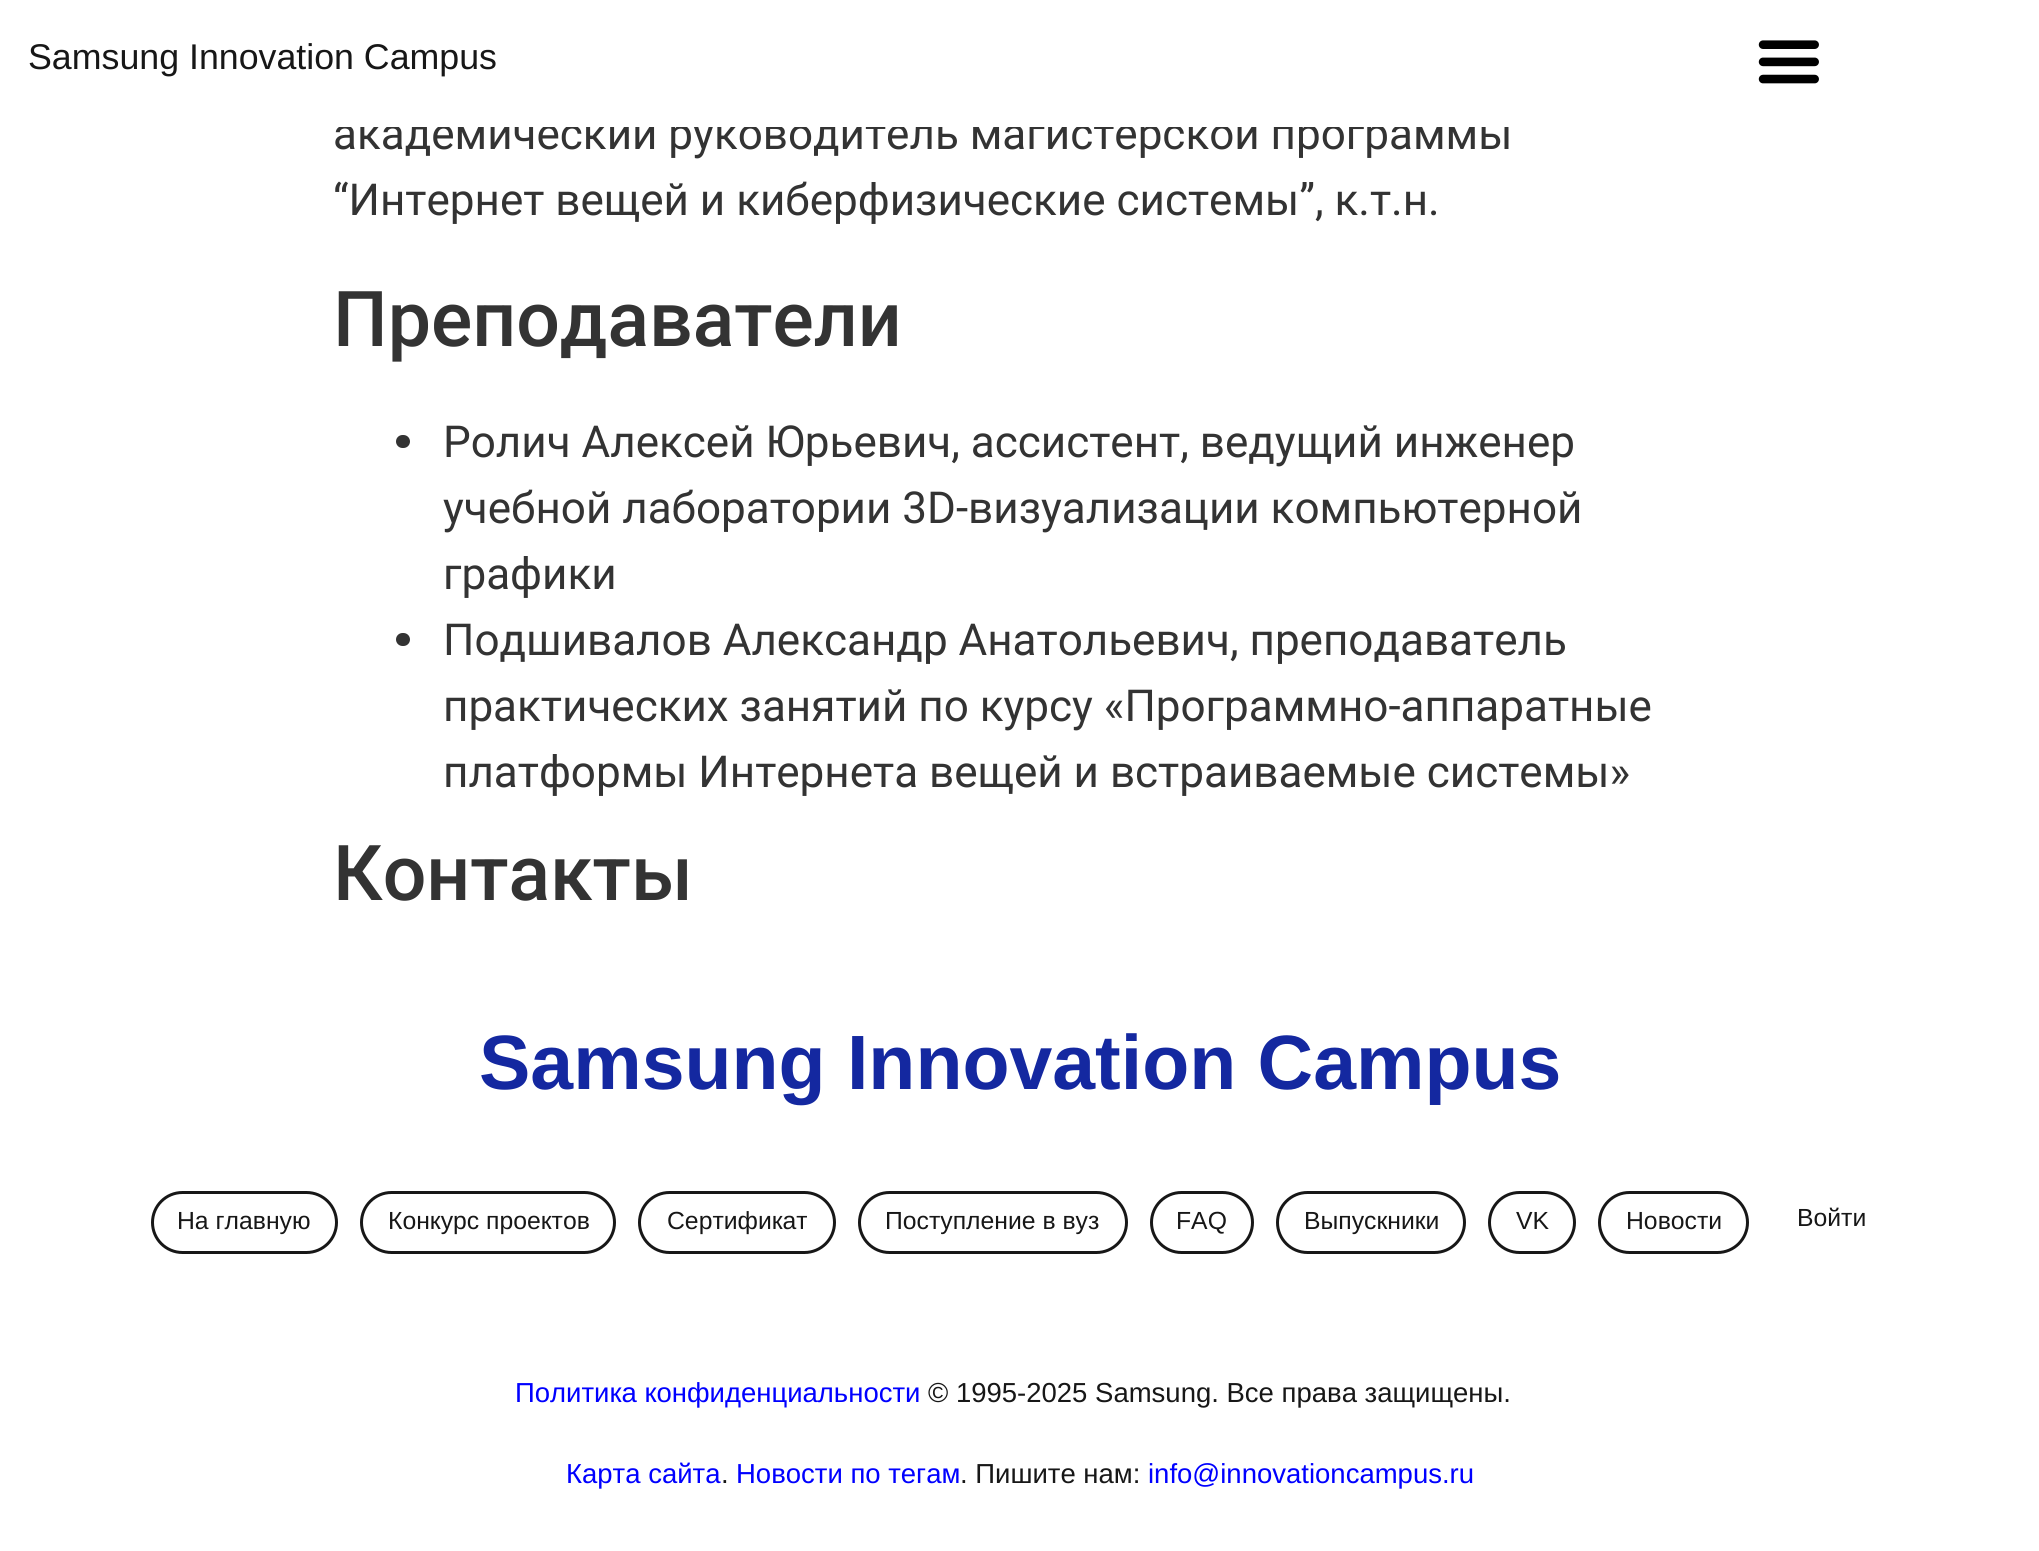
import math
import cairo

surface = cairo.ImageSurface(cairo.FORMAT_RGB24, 2039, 1551)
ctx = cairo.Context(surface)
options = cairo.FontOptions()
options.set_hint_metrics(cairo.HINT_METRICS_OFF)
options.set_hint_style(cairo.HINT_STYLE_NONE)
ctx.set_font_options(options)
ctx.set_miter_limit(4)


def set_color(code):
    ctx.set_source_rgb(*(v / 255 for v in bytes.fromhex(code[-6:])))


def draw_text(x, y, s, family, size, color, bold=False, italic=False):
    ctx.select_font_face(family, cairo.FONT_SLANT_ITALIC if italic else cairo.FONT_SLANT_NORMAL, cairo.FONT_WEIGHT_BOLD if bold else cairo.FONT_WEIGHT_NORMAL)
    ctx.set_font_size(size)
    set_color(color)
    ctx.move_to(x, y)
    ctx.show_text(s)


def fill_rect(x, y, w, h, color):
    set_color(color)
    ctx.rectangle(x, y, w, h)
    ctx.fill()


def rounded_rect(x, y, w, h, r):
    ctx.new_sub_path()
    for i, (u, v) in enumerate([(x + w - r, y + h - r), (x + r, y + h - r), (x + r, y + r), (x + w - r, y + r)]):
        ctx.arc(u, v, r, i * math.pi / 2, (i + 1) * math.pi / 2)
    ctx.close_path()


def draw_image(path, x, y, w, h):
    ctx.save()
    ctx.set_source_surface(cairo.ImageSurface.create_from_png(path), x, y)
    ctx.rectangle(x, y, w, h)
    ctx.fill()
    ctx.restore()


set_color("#ffffff")
ctx.paint()
draw_text(333, 149, "академический руководитель магистерской программы", "Roboto", 44, "#333333")
fill_rect(339, 117, 1170, 10, "#ffffff")
draw_text(28, 69, "Samsung Innovation Campus", "Liberation Sans", 35.75, "#171717")
draw_image("assets/img1.png", 1758, 40, 61, 44)
draw_text(333, 215, "“Интернет вещей и киберфизические системы”, к.т.н.", "Roboto", 44, "#333333")
draw_text(333, 346, "Преподаватели", "Roboto Medium", 77, "#333333")
rounded_rect(396, 435, 14, 13, 6.5)
ctx.fill()
draw_text(443, 457, "Ролич Алексей Юрьевич, ассистент, ведущий инженер", "Roboto", 44, "#333333")
draw_text(443, 523, "учебной лаборатории 3D-визуализации компьютерной", "Roboto", 44, "#333333")
draw_text(443, 589, "графики", "Roboto", 44, "#333333")
rounded_rect(396, 633, 14, 13, 6.5)
ctx.fill()
draw_text(443, 655, "Подшивалов Александр Анатольевич, преподаватель", "Roboto", 44, "#333333")
draw_text(443, 721, "практических занятий по курсу «Программно-аппаратные", "Roboto", 44, "#333333")
draw_text(443, 787, "платформы Интернета вещей и встраиваемые системы»", "Roboto", 44, "#333333")
draw_text(333, 900, "Контакты", "Roboto Medium", 77, "#333333")
draw_text(479, 1089, "Samsung Innovation Campus", "Liberation Sans", 77, "#1428a0", bold=True)
rounded_rect(152.5, 1192.5, 184, 60, 30)
set_color("#171717")
ctx.set_line_width(3)
ctx.stroke()
draw_text(177, 1229, "На главную", "Liberation Sans", 24.75, "#171717")
rounded_rect(361.5, 1192.5, 253, 60, 30)
ctx.stroke()
draw_text(388, 1229, "Конкурс проектов", "Liberation Sans", 24.75, "#171717")
rounded_rect(639.5, 1192.5, 195, 60, 30)
ctx.stroke()
draw_text(667, 1229, "Сертификат", "Liberation Sans", 24.75, "#171717")
rounded_rect(859.5, 1192.5, 267, 60, 30)
ctx.stroke()
draw_text(885, 1229, "Поступление в вуз", "Liberation Sans", 24.75, "#171717")
rounded_rect(1151.5, 1192.5, 101, 60, 30)
ctx.stroke()
draw_text(1176, 1229, "FAQ", "Liberation Sans", 24.75, "#171717")
rounded_rect(1277.5, 1192.5, 187, 60, 30)
ctx.stroke()
draw_text(1304, 1229, "Выпускники", "Liberation Sans", 24.75, "#171717")
rounded_rect(1489.5, 1192.5, 85, 60, 30)
ctx.stroke()
draw_text(1516, 1229, "VK", "Liberation Sans", 24.75, "#171717")
rounded_rect(1599.5, 1192.5, 148, 60, 30)
ctx.stroke()
draw_text(1626, 1229, "Новости", "Liberation Sans", 24.75, "#171717")
draw_text(1797, 1226, "Войти", "Liberation Sans", 24.75, "#171717")
draw_text(515, 1402, "Политика конфиденциальности", "Liberation Sans", 27.5, "#0000ff")
draw_text(928, 1402, "© 1995-2025 Samsung. Все права защищены.", "Liberation Sans", 27.5, "#171717")
draw_text(566, 1483, "Карта сайта", "Liberation Sans", 27.5, "#0000ff")
draw_text(721, 1483, ".", "Liberation Sans", 27.5, "#171717")
draw_text(736, 1483, "Новости по тегам", "Liberation Sans", 27.5, "#0000ff")
draw_text(960, 1483, ". Пишите нам:", "Liberation Sans", 27.5, "#171717")
draw_text(1148, 1483, "info@innovationcampus.ru", "Liberation Sans", 27.5, "#0000ff")
surface.write_to_png("output.png")
